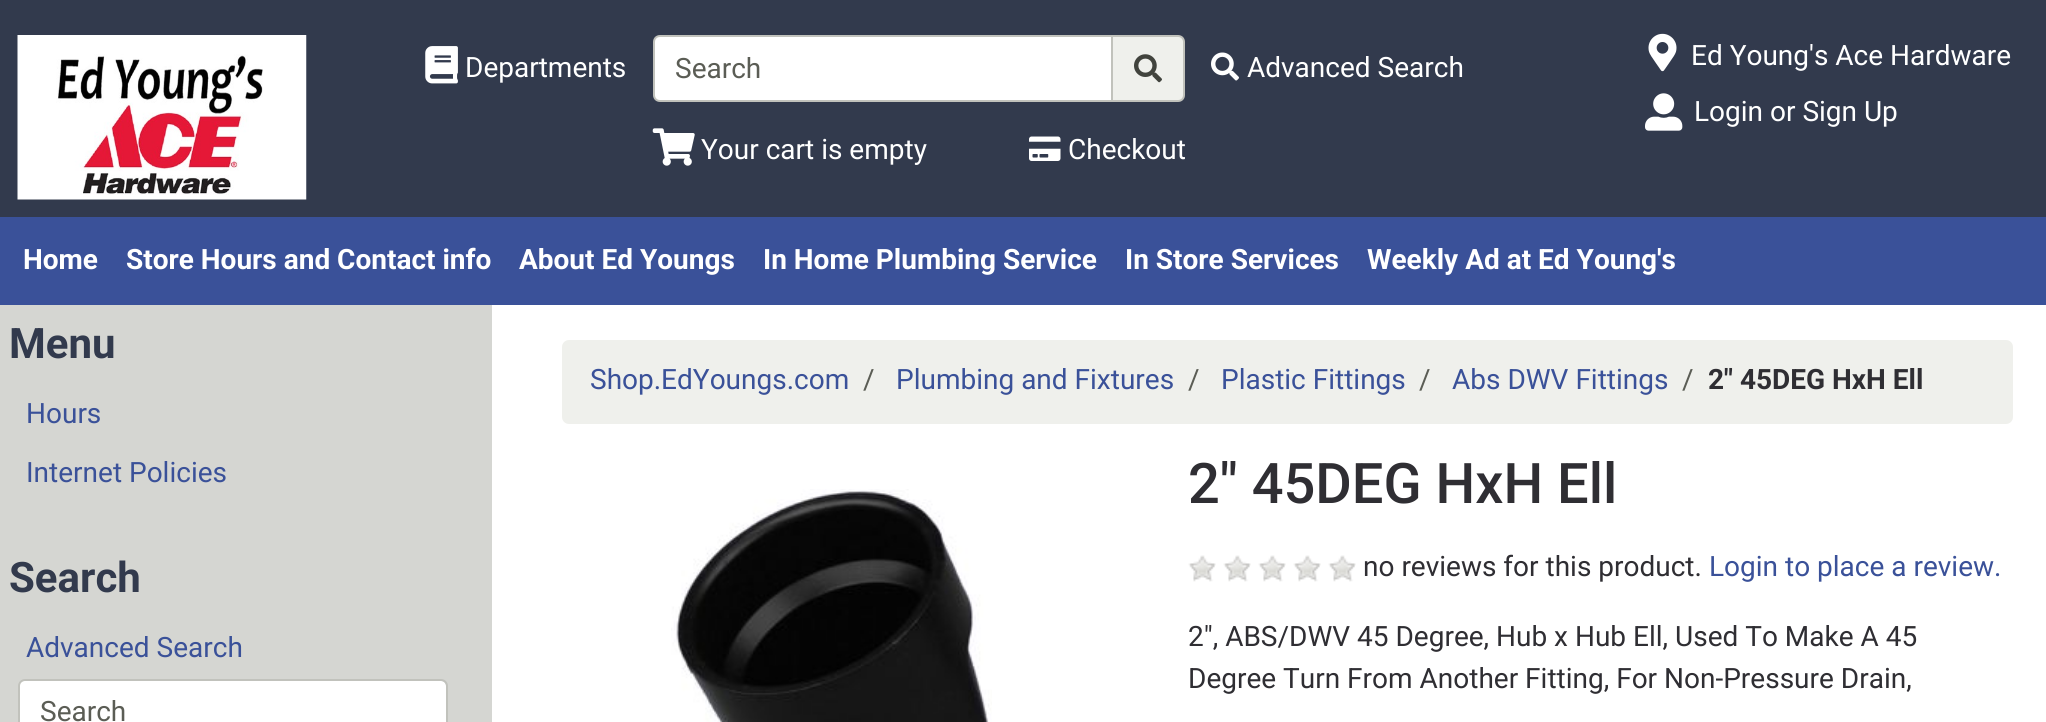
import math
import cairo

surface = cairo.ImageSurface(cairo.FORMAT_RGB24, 2046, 722)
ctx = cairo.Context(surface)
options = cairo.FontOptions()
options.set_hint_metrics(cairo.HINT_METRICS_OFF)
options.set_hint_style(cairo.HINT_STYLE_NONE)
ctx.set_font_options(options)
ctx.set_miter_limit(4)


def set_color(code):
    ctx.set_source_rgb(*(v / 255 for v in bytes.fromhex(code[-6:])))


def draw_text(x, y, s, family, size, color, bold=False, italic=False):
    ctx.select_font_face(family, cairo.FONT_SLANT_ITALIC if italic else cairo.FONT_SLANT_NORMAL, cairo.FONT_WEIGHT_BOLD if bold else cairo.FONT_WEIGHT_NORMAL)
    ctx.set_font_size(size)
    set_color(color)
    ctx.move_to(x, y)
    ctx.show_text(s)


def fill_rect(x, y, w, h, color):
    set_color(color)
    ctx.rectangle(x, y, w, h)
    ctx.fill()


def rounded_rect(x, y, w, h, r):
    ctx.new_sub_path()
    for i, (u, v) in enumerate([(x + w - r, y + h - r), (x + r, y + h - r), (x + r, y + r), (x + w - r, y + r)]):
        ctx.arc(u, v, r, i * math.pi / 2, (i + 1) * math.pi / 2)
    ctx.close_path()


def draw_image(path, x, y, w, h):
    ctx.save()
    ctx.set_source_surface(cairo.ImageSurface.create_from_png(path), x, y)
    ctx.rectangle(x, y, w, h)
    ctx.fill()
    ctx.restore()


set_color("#ffffff")
ctx.paint()
fill_rect(0, 0, 2046, 217, "#323a4d")
draw_image("assets/img1.png", 17, 35, 290, 165)
draw_image("assets/img2.png", 425, 46, 33, 38)
draw_text(465, 77, "Departments", "Roboto", 28, "#ffffff")
ctx.new_path()
ctx.move_to(660, 36)
ctx.line_to(1112, 36)
ctx.line_to(1112, 101)
ctx.line_to(660, 101)
ctx.curve_to(656.5, 101, 654, 98.5, 654, 95)
ctx.line_to(654, 42)
ctx.curve_to(654, 38.5, 656.5, 36, 660, 36)
ctx.close_path()
ctx.fill_preserve()
set_color("#c1c2bc")
ctx.stroke()
draw_text(675, 78, "Search", "Roboto", 28, "#5b5d55")
set_color("#eff0ec")
ctx.new_path()
ctx.move_to(1112, 36)
ctx.line_to(1178, 36)
ctx.curve_to(1181.5, 36, 1184, 38.5, 1184, 42)
ctx.line_to(1184, 95)
ctx.curve_to(1184, 98.5, 1181.5, 101, 1178, 101)
ctx.line_to(1112, 101)
ctx.close_path()
ctx.fill_preserve()
set_color("#c1c2bc")
ctx.stroke()
draw_image("assets/img3.png", 1134, 54, 28, 29)
draw_image("assets/img4.png", 1211, 52, 28, 29)
draw_text(1247, 77, "Advanced Search", "Roboto", 28, "#ffffff")
draw_image("assets/img5.png", 652, 128, 43, 38)
draw_text(701, 159, "Your cart is empty", "Roboto", 28, "#ffffff")
draw_image("assets/img6.png", 1029, 136, 32, 25)
draw_text(1068, 159, "Checkout", "Roboto", 28, "#ffffff")
draw_image("assets/img7.png", 1648, 33, 29, 39)
draw_text(1691, 65, "Ed Young's Ace Hardware", "Roboto", 28, "#ffffff")
draw_image("assets/img8.png", 1645, 93, 38, 38)
draw_text(1694, 121, "Login or Sign Up", "Roboto", 28, "#ffffff")
fill_rect(0, 217, 2046, 88, "#3a5199")
draw_text(23, 269, "Home", "Roboto", 28, "#ffffff", bold=True)
draw_text(126, 269, "Store Hours and Contact info", "Roboto", 28, "#ffffff", bold=True)
draw_text(519, 269, "About Ed Youngs", "Roboto", 28, "#ffffff", bold=True)
draw_text(763, 269, "In Home Plumbing Service", "Roboto", 28, "#ffffff", bold=True)
draw_text(1125, 269, "In Store Services", "Roboto", 28, "#ffffff", bold=True)
draw_text(1367, 269, "Weekly Ad at Ed Young's", "Roboto", 28, "#ffffff", bold=True)
fill_rect(0, 305, 492, 417, "#d5d6d2")
draw_text(9, 358, "Menu", "Roboto", 42, "#323a4d", bold=True)
draw_text(26, 423, "Hours", "Roboto", 28, "#3a5199")
draw_text(26, 482, "Internet Policies", "Roboto", 28, "#3a5199")
draw_text(9, 592, "Search", "Roboto", 42, "#323a4d", bold=True)
draw_text(26, 657, "Advanced Search", "Roboto", 28, "#3a5199")
set_color("#ffffff")
rounded_rect(19, 681, 427, 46, 5)
ctx.fill()
rounded_rect(19, 680, 428, 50, 6)
set_color("#c1c2bc")
ctx.stroke()
draw_text(40, 721, "Search", "Roboto", 28, "#5b5d55")
set_color("#eff0ec")
rounded_rect(562, 340, 1451, 84, 7)
ctx.fill()
draw_text(590, 389, "Shop.EdYoungs.com", "Roboto", 28, "#3a5199")
draw_text(863, 389, "/", "Roboto", 28, "#5b5d55")
draw_text(896, 389, "Plumbing and Fixtures", "Roboto", 28, "#3a5199")
draw_text(1188, 389, "/", "Roboto", 28, "#5b5d55")
draw_text(1221, 389, "Plastic Fittings", "Roboto", 28, "#3a5199")
draw_text(1419, 389, "/", "Roboto", 28, "#5b5d55")
draw_text(1452, 389, "Abs DWV Fittings", "Roboto", 28, "#3a5199")
draw_text(1682, 389, "/", "Roboto", 28, "#5b5d55")
draw_text(1708, 389, "2\" 45DEG HxH Ell", "Roboto", 28, "#2f2e33", bold=True)
draw_image("assets/img9.png", 671, 489, 321, 233)
draw_text(1188, 503, "2\" 45DEG HxH Ell", "Roboto Medium", 56, "#2f2e33")
draw_image("assets/img10.png", 1188, 555, 28, 27)
draw_image("assets/img10.png", 1223, 555, 28, 27)
draw_image("assets/img10.png", 1258, 555, 28, 27)
draw_image("assets/img10.png", 1293, 555, 28, 27)
draw_image("assets/img11.png", 1328, 555, 28, 27)
draw_text(1363, 576, "no reviews for this product.", "Roboto", 28, "#2f2e33")
draw_text(1709, 576, "Login to place a review.", "Roboto", 28, "#3a5199")
draw_text(1188, 646, "2\", ABS/DWV 45 Degree, Hub x Hub Ell, Used To Make A 45", "Roboto", 28, "#2f2e33")
draw_text(1188, 688, "Degree Turn From Another Fitting, For Non-Pressure Drain,", "Roboto", 28, "#2f2e33")
surface.write_to_png("output.png")
